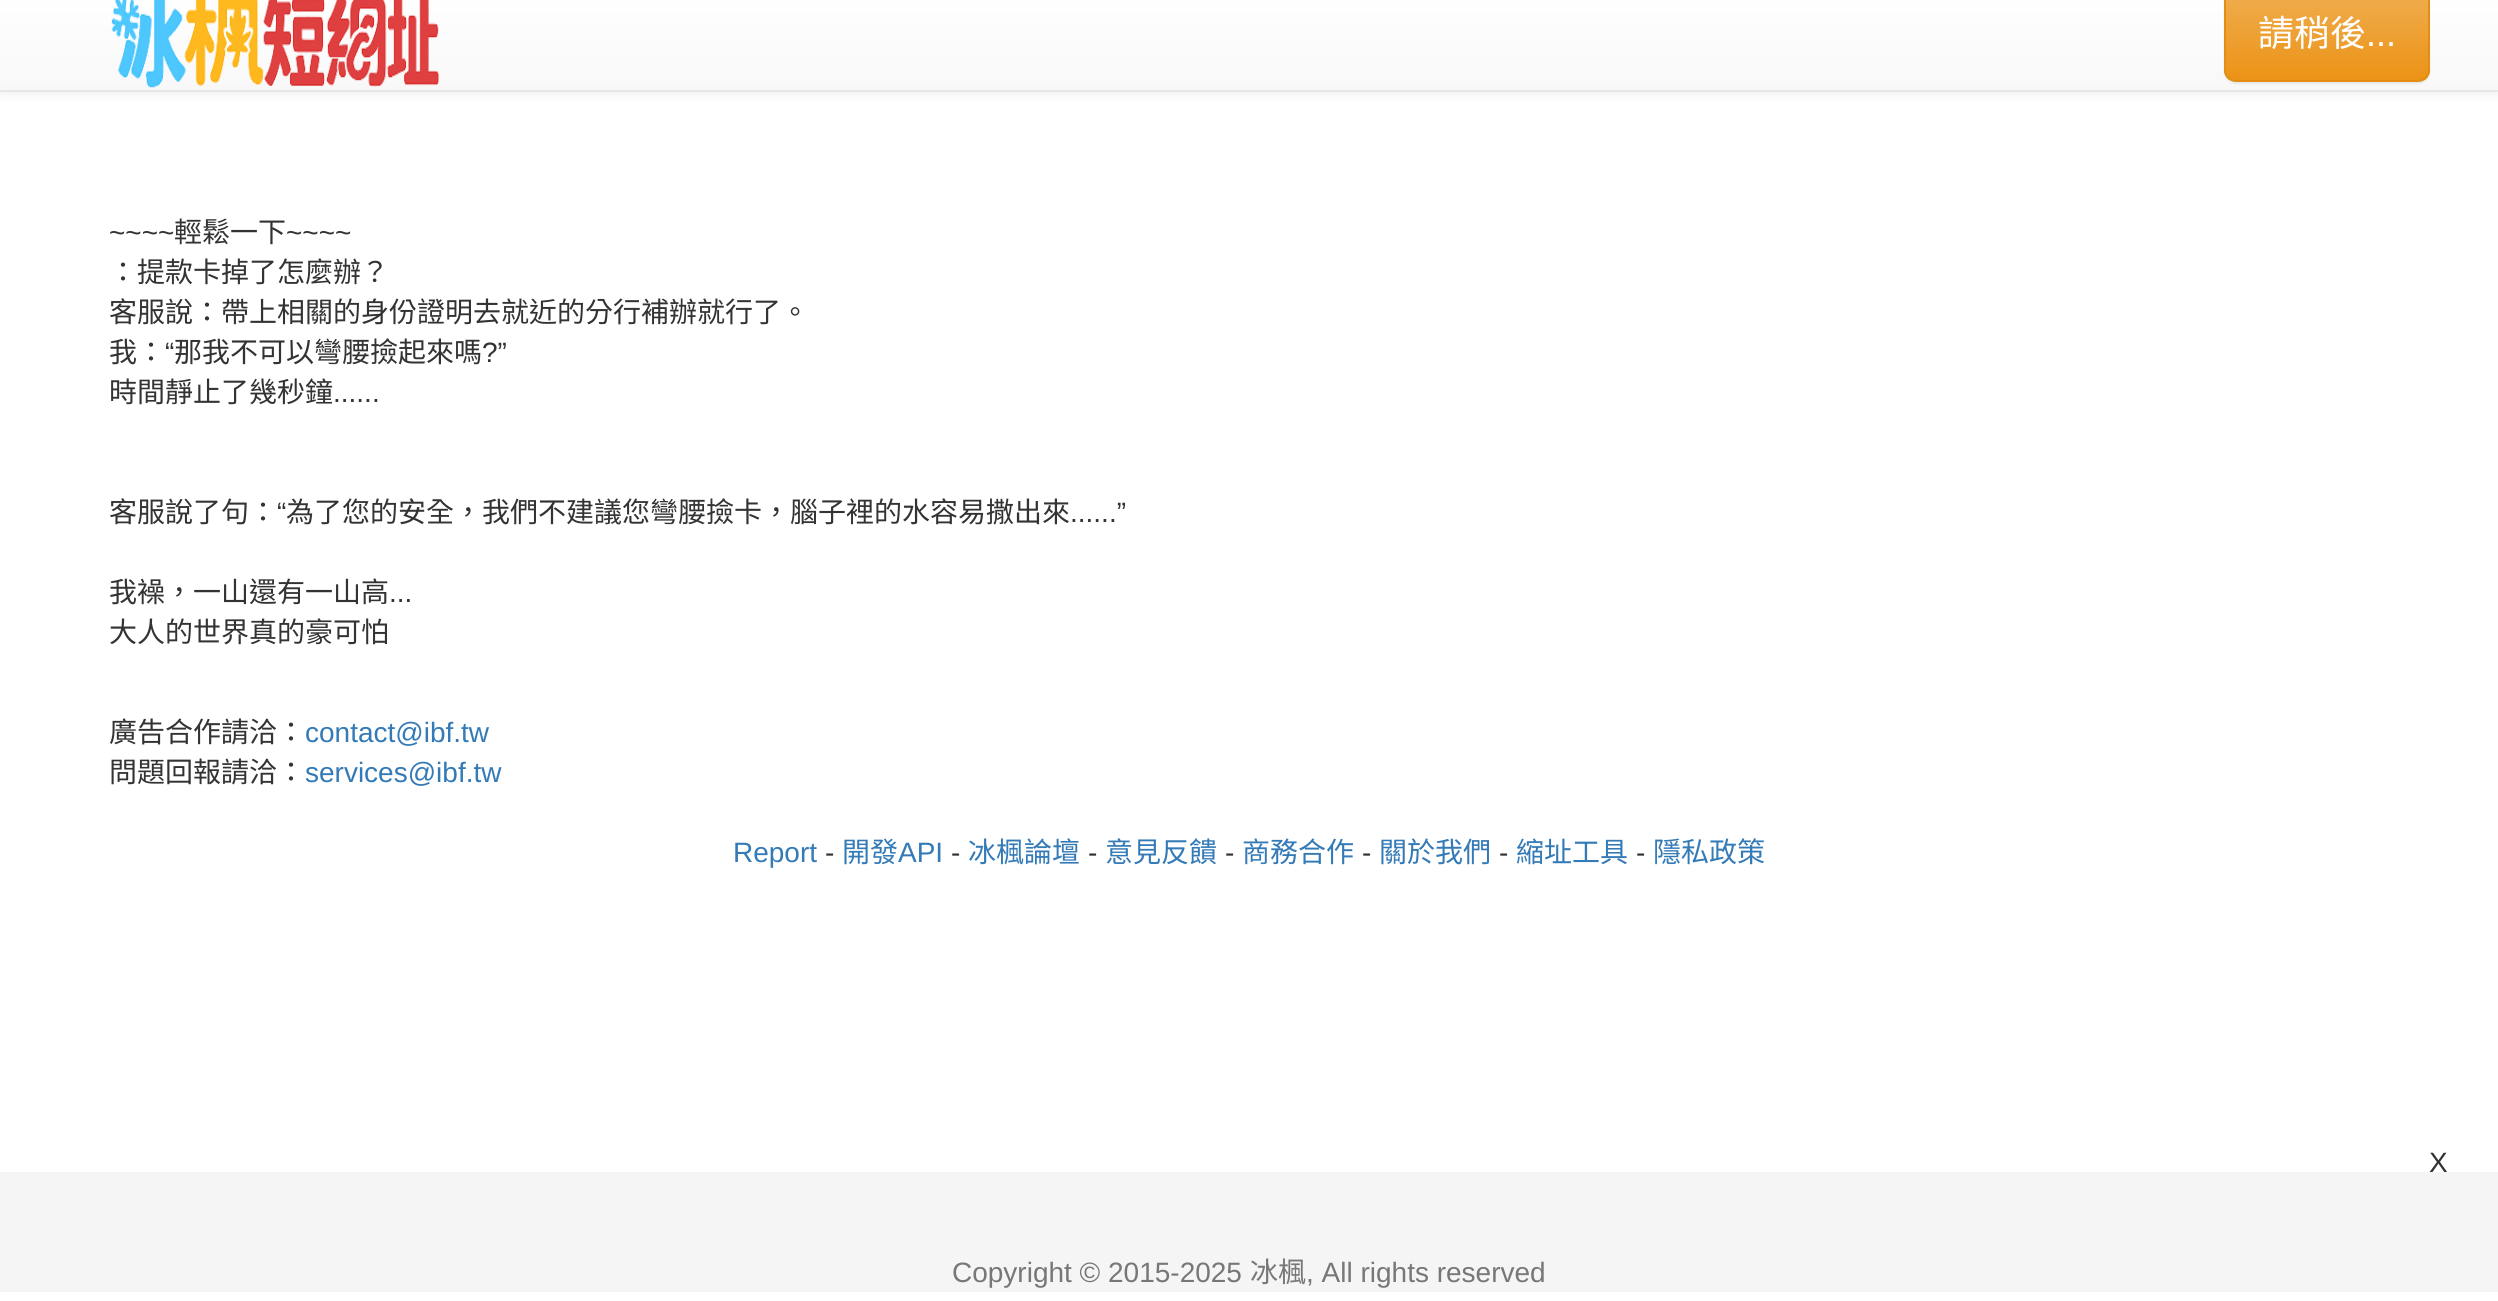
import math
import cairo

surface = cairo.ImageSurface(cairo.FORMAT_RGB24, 2498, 1301)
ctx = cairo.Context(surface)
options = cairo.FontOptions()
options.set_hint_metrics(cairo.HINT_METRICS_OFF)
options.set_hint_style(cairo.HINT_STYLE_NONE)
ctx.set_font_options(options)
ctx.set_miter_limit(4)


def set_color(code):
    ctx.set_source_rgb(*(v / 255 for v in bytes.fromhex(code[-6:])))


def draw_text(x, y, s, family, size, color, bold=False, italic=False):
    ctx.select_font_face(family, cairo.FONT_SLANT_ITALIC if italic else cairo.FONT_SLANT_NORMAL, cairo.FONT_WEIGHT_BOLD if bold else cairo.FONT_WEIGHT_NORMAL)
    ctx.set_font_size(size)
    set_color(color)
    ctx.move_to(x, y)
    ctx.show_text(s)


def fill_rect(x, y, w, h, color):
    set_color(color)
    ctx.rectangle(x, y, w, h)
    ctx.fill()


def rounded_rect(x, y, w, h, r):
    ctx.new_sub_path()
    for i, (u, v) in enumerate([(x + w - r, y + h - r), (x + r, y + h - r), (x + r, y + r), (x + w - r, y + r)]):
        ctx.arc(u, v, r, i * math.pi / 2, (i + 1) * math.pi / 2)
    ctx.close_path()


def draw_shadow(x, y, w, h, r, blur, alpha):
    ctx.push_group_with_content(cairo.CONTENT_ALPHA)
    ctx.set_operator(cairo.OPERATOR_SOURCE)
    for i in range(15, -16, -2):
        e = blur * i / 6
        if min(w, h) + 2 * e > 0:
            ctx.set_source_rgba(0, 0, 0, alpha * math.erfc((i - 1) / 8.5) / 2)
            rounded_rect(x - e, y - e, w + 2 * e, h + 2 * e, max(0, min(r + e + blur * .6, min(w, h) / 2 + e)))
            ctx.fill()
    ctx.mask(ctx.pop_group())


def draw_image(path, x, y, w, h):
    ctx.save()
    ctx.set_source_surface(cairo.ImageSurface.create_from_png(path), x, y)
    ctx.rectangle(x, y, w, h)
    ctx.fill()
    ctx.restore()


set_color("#ffffff")
ctx.paint()
set_color("#000000")
draw_shadow(0, -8, 2498, 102, 0, 5, 0.07)
gradient = cairo.LinearGradient(1249, -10, 1249, 90)
gradient.add_color_stop_rgba(0, 1, 1, 1, 1)
gradient.add_color_stop_rgba(1, 0.973, 0.973, 0.973, 1)
ctx.set_source(gradient)
ctx.rectangle(0, 0, 2498, 90)
ctx.fill()
fill_rect(0, 90, 2498, 2, "#e7e7e7")
draw_image("assets/img1.png", 111, 0, 329, 88)
set_color("#000000")
draw_shadow(2224, -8, 206, 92, 12, 1, 0.07)
ctx.save()
rounded_rect(2224, -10, 206, 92, 12)
ctx.clip()
gradient = cairo.LinearGradient(2327, -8, 2327, 80)
gradient.add_color_stop_rgba(0, 0.941, 0.678, 0.306, 1)
gradient.add_color_stop_rgba(1, 0.922, 0.576, 0.086, 1)
ctx.set_source(gradient)
ctx.rectangle(2224, 0, 206, 80)
ctx.fill()
ctx.restore()
set_color("#f2b764")
ctx.new_path()
ctx.move_to(2236, -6)
ctx.line_to(2418, -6)
ctx.curve_to(2424, -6, 2428, -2, 2428, 4)
ctx.line_to(2428, 2)
ctx.curve_to(2428, -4, 2424, -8, 2418, -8)
ctx.line_to(2236, -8)
ctx.curve_to(2230, -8, 2226, -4, 2226, 2)
ctx.line_to(2226, 4)
ctx.curve_to(2226, -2, 2230, -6, 2236, -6)
ctx.close_path()
ctx.fill()
rounded_rect(2225, -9, 204, 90, 11)
set_color("#e38d13")
ctx.stroke()
draw_text(2258, 46, "請稍後", "Noto Sans CJK TC", 36, "#ffffff")
draw_text(2366, 46, "...", "Liberation Sans", 36, "#ffffff")
draw_text(109, 242, "~~~~", "Liberation Sans", 28, "#333333")
draw_text(174, 242, "輕鬆一下", "Noto Sans CJK TC", 28, "#333333")
draw_text(286, 242, "~~~~", "Liberation Sans", 28, "#333333")
draw_text(109, 282, "：提款卡掉了怎麼辦？", "Noto Sans CJK TC", 28, "#333333")
draw_text(109, 322, "客服說：帶上相關的身份證明去就近的分行補辦就行了。", "Noto Sans CJK TC", 28, "#333333")
draw_text(109, 362, "我：", "Noto Sans CJK TC", 28, "#333333")
draw_text(165, 362, "“", "Liberation Sans", 28, "#333333")
draw_text(174, 362, "那我不可以彎腰撿起來嗎", "Noto Sans CJK TC", 28, "#333333")
draw_text(482, 362, "?”", "Liberation Sans", 28, "#333333")
draw_text(109, 402, "時間靜止了幾秒鐘", "Noto Sans CJK TC", 28, "#333333")
draw_text(333, 402, "......", "Liberation Sans", 28, "#333333")
draw_text(109, 522, "客服說了句：", "Noto Sans CJK TC", 28, "#333333")
draw_text(277, 522, "“", "Liberation Sans", 28, "#333333")
draw_text(286, 522, "為了您的安全，我們不建議您彎腰撿卡，腦子裡的水容易撒出來", "Noto Sans CJK TC", 28, "#333333")
draw_text(1070, 522, "......”", "Liberation Sans", 28, "#333333")
draw_text(109, 602, "我襙，一山還有一山高", "Noto Sans CJK TC", 28, "#333333")
draw_text(389, 602, "...", "Liberation Sans", 28, "#333333")
draw_text(109, 642, "大人的世界真的豪可怕", "Noto Sans CJK TC", 28, "#333333")
draw_text(109, 742, "廣告合作請洽：", "Noto Sans CJK TC", 28, "#333333")
draw_text(305, 742, "contact@ibf.tw", "Liberation Sans", 28, "#337ab7")
draw_text(109, 782, "問題回報請洽：", "Noto Sans CJK TC", 28, "#333333")
draw_text(305, 782, "services@ibf.tw", "Liberation Sans", 28, "#337ab7")
draw_text(733, 862, "Report", "Liberation Sans", 28, "#337ab7")
draw_text(825, 862, "-", "Liberation Sans", 28, "#333333")
draw_text(842, 862, "開發", "Noto Sans CJK TC", 28, "#337ab7")
draw_text(898, 862, "API", "Liberation Sans", 28, "#337ab7")
draw_text(951, 862, "-", "Liberation Sans", 28, "#333333")
draw_text(968, 862, "冰楓論壇", "Noto Sans CJK TC", 28, "#337ab7")
draw_text(1088, 862, "-", "Liberation Sans", 28, "#333333")
draw_text(1105, 862, "意見反饋", "Noto Sans CJK TC", 28, "#337ab7")
draw_text(1225, 862, "-", "Liberation Sans", 28, "#333333")
draw_text(1242, 862, "商務合作", "Noto Sans CJK TC", 28, "#337ab7")
draw_text(1362, 862, "-", "Liberation Sans", 28, "#333333")
draw_text(1379, 862, "關於我們", "Noto Sans CJK TC", 28, "#337ab7")
draw_text(1499, 862, "-", "Liberation Sans", 28, "#333333")
draw_text(1516, 862, "縮址工具", "Noto Sans CJK TC", 28, "#337ab7")
draw_text(1636, 862, "-", "Liberation Sans", 28, "#333333")
draw_text(1653, 862, "隱私政策", "Noto Sans CJK TC", 28, "#337ab7")
fill_rect(0, 1172, 2498, 120, "#f5f5f5")
draw_text(2429, 1172, "X", "Liberation Sans", 28, "#333333")
draw_text(952, 1282, "Copyright © 2015-2025", "Liberation Sans", 28, "#777777")
draw_text(1250, 1282, "冰楓", "Noto Sans CJK TC", 28, "#777777")
draw_text(1306, 1282, ", All rights reserved", "Liberation Sans", 28, "#777777")
surface.write_to_png("output.png")
